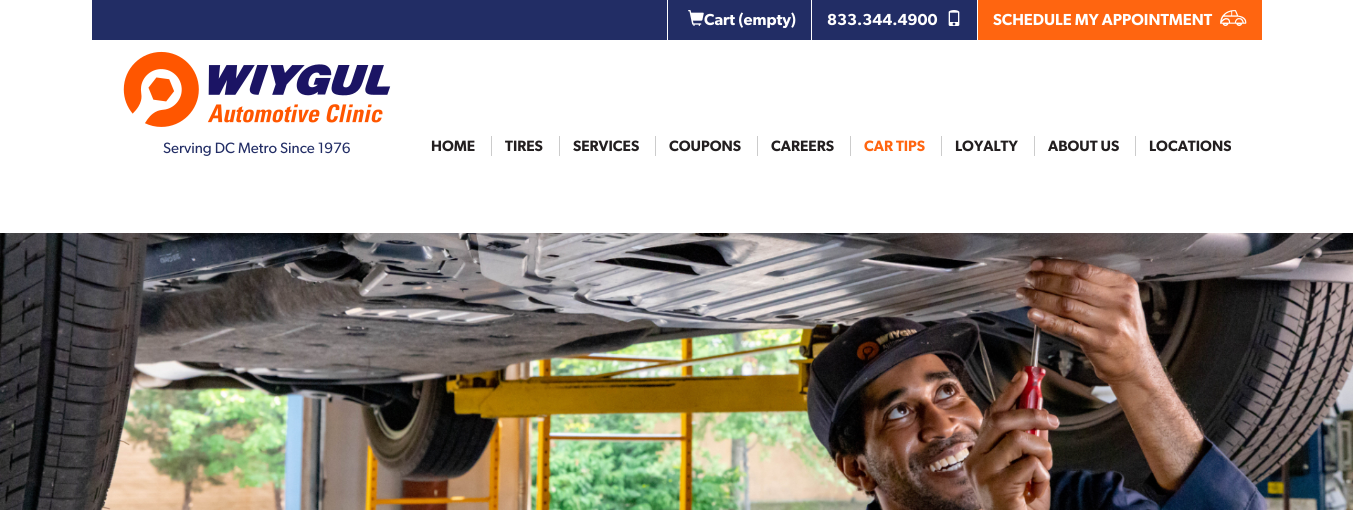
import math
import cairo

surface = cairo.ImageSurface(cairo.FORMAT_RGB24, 1353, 510)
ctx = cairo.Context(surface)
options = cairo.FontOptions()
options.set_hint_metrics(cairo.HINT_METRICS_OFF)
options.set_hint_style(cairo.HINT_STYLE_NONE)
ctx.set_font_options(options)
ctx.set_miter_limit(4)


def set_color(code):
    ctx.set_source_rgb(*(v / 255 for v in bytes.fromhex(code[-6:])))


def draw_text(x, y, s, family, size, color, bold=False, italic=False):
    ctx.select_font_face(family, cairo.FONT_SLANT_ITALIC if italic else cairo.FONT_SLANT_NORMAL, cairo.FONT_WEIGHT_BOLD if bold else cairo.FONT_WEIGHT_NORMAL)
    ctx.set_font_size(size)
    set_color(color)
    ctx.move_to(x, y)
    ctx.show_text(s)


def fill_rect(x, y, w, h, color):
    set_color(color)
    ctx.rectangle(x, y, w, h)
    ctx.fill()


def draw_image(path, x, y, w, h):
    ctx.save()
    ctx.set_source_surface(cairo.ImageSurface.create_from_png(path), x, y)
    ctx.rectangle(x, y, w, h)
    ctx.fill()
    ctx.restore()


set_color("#ffffff")
ctx.paint()
fill_rect(92, 0, 885, 40, "#222d65")
fill_rect(667, 0, 1, 40, "#ffffff")
draw_image("assets/img1.png", 688, 10, 16, 16)
draw_text(704, 25, "Cart (empty)", "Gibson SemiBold", 16, "#ffffff")
fill_rect(811, 0, 1, 40, "#ffffff")
draw_text(827, 25, "833.344.4900", "Gibson SemiBold", 16, "#ffffff")
draw_image("assets/img2.png", 948, 10, 12, 16)
fill_rect(978, 0, 284, 40, "#ff6510")
draw_text(993, 25, "SCHEDULE MY APPOINTMENT", "Gibson SemiBold", 16, "#ffffff")
draw_image("assets/img3.png", 1220, 10, 27, 16)
draw_image("assets/img4.png", 123, 51, 268, 76)
draw_text(163, 153, "Serving DC Metro Since 1976", "Gibson", 15, "#222d65")
draw_text(431, 151, "HOME", "Gibson SemiBold", 15, "#231f20")
fill_rect(491, 136, 1, 20, "#cccccc")
draw_text(505, 151, "TIRES", "Gibson SemiBold", 15, "#231f20")
fill_rect(559, 136, 1, 20, "#cccccc")
draw_text(573, 151, "SERVICES", "Gibson SemiBold", 15, "#231f20")
fill_rect(655, 136, 1, 20, "#cccccc")
draw_text(669, 151, "COUPONS", "Gibson SemiBold", 15, "#231f20")
fill_rect(757, 136, 1, 20, "#cccccc")
draw_text(771, 151, "CAREERS", "Gibson SemiBold", 15, "#231f20")
fill_rect(850, 136, 1, 20, "#cccccc")
draw_text(864, 151, "CAR TIPS", "Gibson SemiBold", 15, "#ff6510")
fill_rect(941, 136, 1, 20, "#cccccc")
draw_text(955, 151, "LOYALTY", "Gibson SemiBold", 15, "#231f20")
fill_rect(1034, 136, 1, 20, "#cccccc")
draw_text(1048, 151, "ABOUT US", "Gibson SemiBold", 15, "#231f20")
fill_rect(1135, 136, 1, 20, "#cccccc")
draw_text(1149, 151, "LOCATIONS", "Gibson SemiBold", 15, "#231f20")
draw_image("assets/img5.png", 0, 233, 1353, 277)
surface.write_to_png("output.png")
